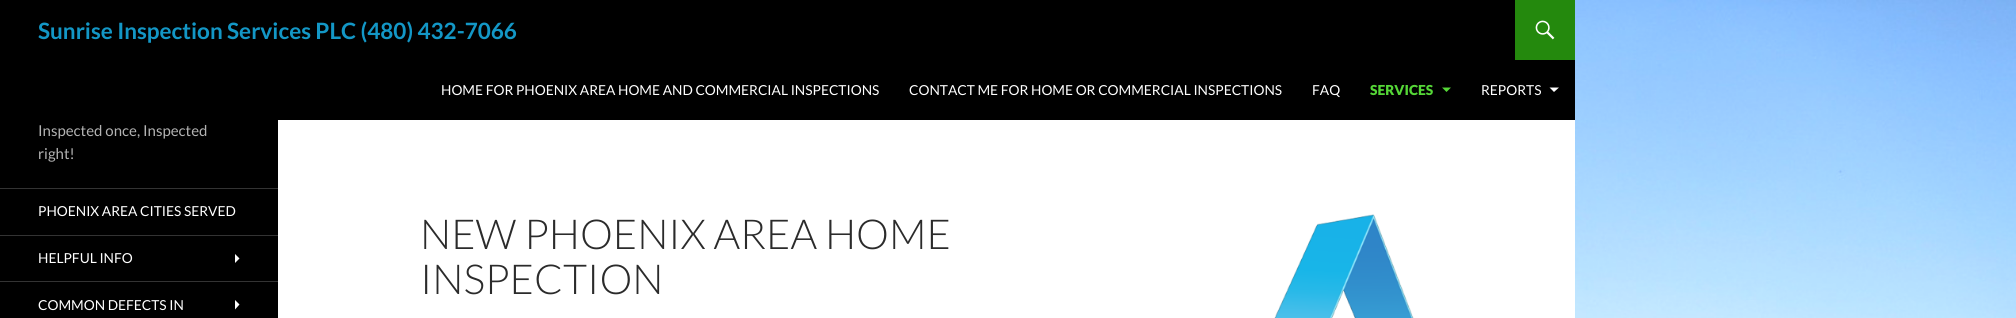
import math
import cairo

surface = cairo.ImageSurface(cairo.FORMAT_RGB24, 2016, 318)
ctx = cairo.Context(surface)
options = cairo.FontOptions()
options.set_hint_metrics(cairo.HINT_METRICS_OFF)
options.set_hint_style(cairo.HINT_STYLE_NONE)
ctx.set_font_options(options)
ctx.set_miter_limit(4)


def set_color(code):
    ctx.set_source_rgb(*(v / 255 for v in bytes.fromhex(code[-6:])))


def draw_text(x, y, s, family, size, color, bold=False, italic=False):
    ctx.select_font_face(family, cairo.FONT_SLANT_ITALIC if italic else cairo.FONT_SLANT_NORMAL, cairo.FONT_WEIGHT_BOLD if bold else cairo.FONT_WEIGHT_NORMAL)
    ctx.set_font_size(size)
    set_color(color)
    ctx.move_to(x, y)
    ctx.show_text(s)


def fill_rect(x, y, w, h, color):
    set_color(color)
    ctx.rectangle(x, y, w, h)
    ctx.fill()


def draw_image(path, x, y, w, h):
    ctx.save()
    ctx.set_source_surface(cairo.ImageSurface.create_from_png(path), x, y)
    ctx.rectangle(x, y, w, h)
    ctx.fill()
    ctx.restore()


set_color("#ffffff")
ctx.paint()
draw_image("assets/img1.png", 1575, 0, 441, 318)
fill_rect(0, 0, 1575, 120, "#000000")
draw_text(38, 39, "Sunrise Inspection Services PLC (480) 432-7066", "Lato", 22.5, "#1397c6", bold=True)
fill_rect(1515, 0, 60, 60, "#24890d")
draw_image("assets/img2.png", 1535, 20, 20, 20)
draw_text(441, 95, "HOME FOR PHOENIX AREA HOME AND COMMERCIAL INSPECTIONS", "Lato", 13.75, "#ffffff")
draw_text(909, 95, "CONTACT ME FOR HOME OR COMMERCIAL INSPECTIONS", "Lato", 13.75, "#ffffff")
draw_text(1312, 95, "FAQ", "Lato", 13.75, "#ffffff")
draw_text(1370, 95, "SERVICES", "Lato Black", 13.75, "#55d737")
ctx.new_path()
ctx.move_to(1442, 87.5)
ctx.line_to(1451, 87.5)
ctx.line_to(1446.5, 92)
ctx.close_path()
ctx.fill()
draw_text(1481, 95, "REPORTS", "Lato", 13.75, "#ffffff")
ctx.new_path()
ctx.move_to(1549.5, 87.5)
ctx.line_to(1559, 87.5)
ctx.line_to(1554, 92)
ctx.close_path()
ctx.fill()
fill_rect(0, 120, 278, 198, "#000000")
draw_text(38, 136, "Inspected once, Inspected", "Lato", 15, "#b3b3b3")
draw_text(38, 159, "right!", "Lato", 15, "#b3b3b3")
fill_rect(0, 188, 278, 1, "#333333")
draw_text(38, 216, "PHOENIX AREA CITIES SERVED", "Lato", 13.75, "#ffffff")
fill_rect(0, 235, 278, 1, "#333333")
draw_text(38, 263, "HELPFUL INFO", "Lato", 13.75, "#ffffff")
ctx.new_path()
ctx.move_to(235, 263)
ctx.line_to(235, 254)
ctx.line_to(239.5, 258.5)
ctx.close_path()
ctx.fill()
fill_rect(0, 281, 278, 1, "#333333")
draw_text(38, 310, "COMMON DEFECTS IN", "Lato", 13.75, "#ffffff")
ctx.new_path()
ctx.move_to(235, 309.5)
ctx.line_to(235, 300)
ctx.line_to(239.5, 304.5)
ctx.close_path()
ctx.fill()
draw_text(420, 249, "NEW PHOENIX AREA HOME", "Lato Light", 41.25, "#2b2b2b")
draw_text(420, 294, "INSPECTION", "Lato Light", 41.25, "#2b2b2b")
draw_image("assets/img3.png", 1274, 214, 140, 104)
surface.write_to_png("output.png")
